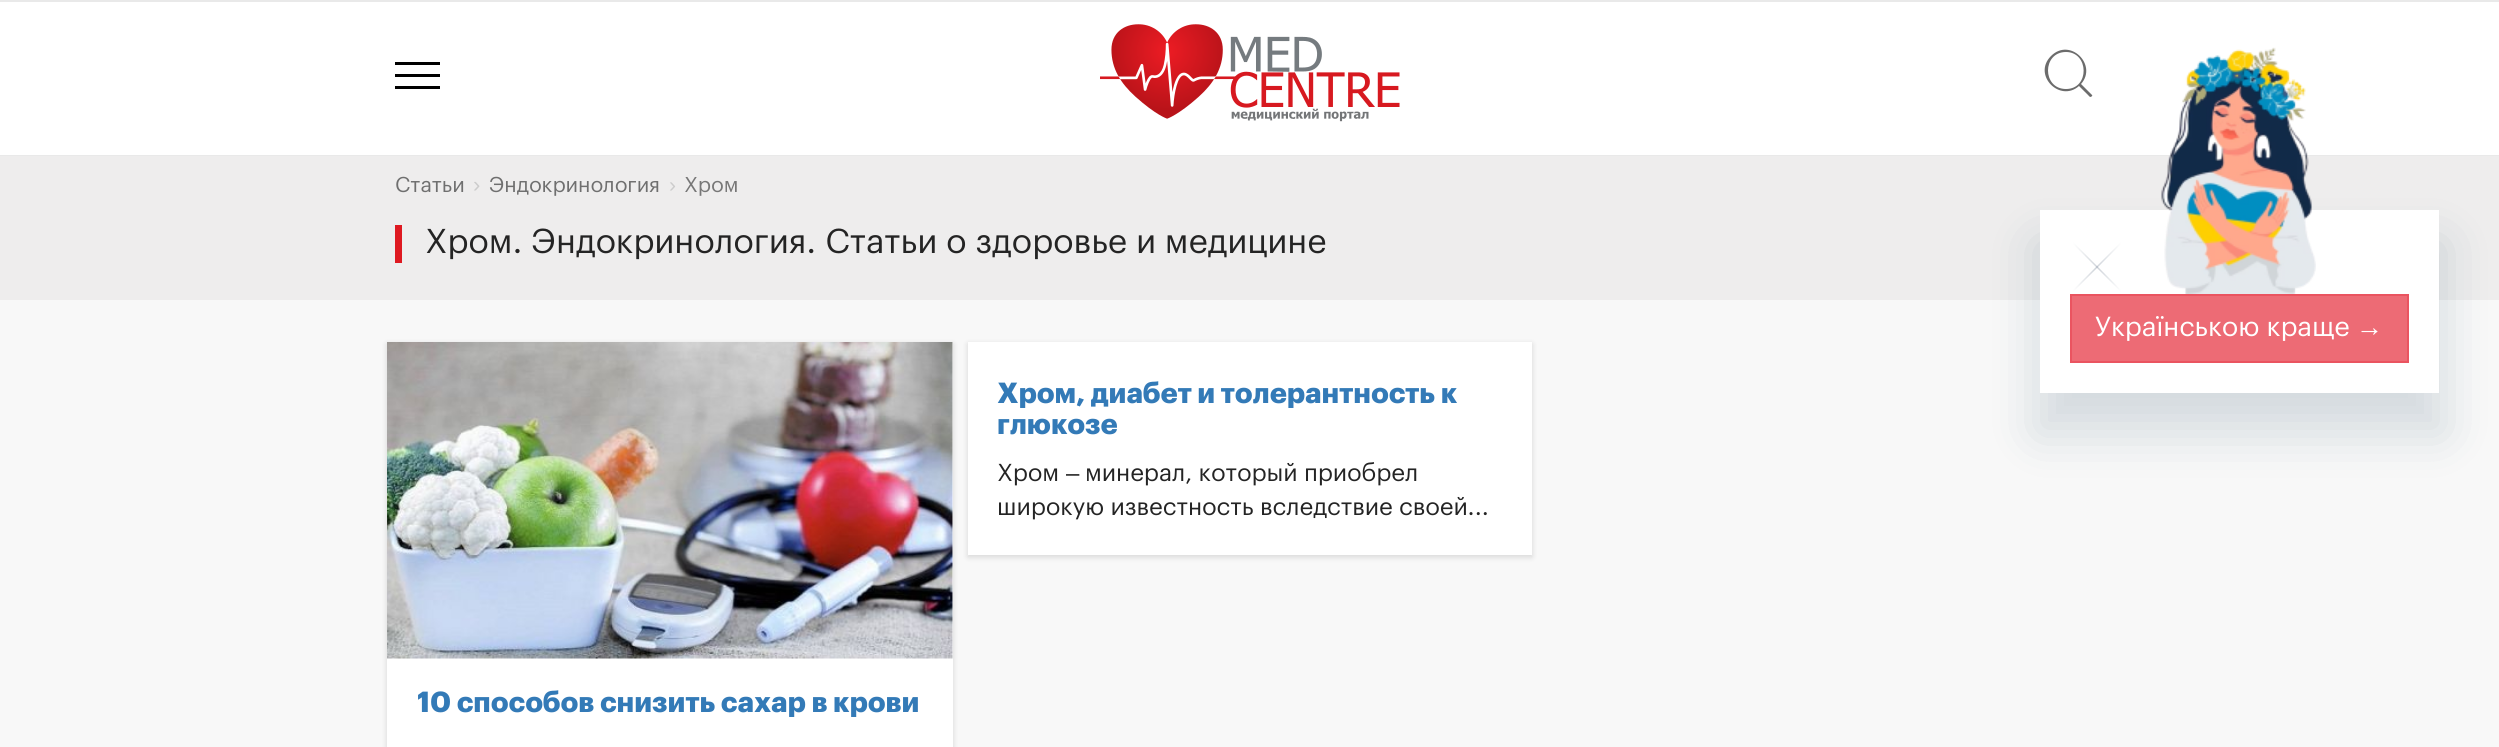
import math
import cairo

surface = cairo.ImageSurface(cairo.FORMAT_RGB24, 2499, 747)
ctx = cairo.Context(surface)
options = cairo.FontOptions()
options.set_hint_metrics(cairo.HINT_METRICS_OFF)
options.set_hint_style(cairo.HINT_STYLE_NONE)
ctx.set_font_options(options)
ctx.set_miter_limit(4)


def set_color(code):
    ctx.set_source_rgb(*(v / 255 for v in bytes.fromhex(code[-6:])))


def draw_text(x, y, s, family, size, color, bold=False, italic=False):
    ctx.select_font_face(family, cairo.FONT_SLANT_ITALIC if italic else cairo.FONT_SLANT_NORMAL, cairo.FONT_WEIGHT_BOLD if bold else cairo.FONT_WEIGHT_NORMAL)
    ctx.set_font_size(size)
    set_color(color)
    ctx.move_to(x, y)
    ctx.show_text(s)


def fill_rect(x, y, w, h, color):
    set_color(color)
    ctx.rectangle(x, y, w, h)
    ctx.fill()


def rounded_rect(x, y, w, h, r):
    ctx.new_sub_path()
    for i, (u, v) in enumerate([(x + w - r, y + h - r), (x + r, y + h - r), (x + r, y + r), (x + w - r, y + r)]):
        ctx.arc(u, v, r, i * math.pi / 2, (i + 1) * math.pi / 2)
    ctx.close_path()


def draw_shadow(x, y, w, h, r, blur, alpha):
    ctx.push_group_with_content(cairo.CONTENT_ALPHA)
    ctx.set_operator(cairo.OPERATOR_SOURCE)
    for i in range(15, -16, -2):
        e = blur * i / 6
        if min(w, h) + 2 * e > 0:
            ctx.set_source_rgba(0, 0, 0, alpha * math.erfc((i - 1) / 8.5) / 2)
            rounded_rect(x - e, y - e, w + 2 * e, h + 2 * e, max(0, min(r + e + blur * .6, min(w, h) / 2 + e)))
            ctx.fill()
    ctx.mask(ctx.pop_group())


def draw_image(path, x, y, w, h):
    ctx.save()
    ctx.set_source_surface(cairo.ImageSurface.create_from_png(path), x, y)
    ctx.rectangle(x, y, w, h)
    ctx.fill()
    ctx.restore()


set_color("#f8f8f8")
ctx.paint()
fill_rect(0, 2, 2499, 153, "#ffffff")
fill_rect(0, 0, 2499, 2, "#e9e9e9")
fill_rect(0, 155, 2499, 1, "#e9e9e9")
fill_rect(395, 62, 45, 3, "#000000")
fill_rect(395, 74, 45, 3, "#000000")
fill_rect(395, 86, 45, 3, "#000000")
draw_image("assets/img1.png", 1100, 24, 300, 98)
set_color("#6c6c6c")
ctx.new_path()
ctx.move_to(2092, 95)
ctx.line_to(2081, 84)
ctx.curve_to(2098, 65, 2070, 37, 2051, 56)
ctx.curve_to(2032, 75, 2060, 103, 2079, 86)
ctx.line_to(2090, 97)
ctx.curve_to(2091, 97, 2093, 96, 2092, 95)
ctx.close_path()
ctx.move_to(2066, 89)
ctx.curve_to(2042, 89, 2042, 52, 2066, 52)
ctx.curve_to(2089, 52, 2090, 89, 2066, 89)
ctx.close_path()
ctx.fill()
fill_rect(0, 156, 2499, 144, "#eeeded")
draw_text(395, 192, "Статьи", "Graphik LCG", 21, "#6f6f6f")
draw_text(473, 192, "›", "Liberation Sans", 22, "#cccccc")
draw_text(489, 192, "Эндокринология", "Graphik LCG", 21, "#6f6f6f")
draw_text(669, 192, "›", "Liberation Sans", 21, "#cccccc")
draw_text(684, 192, "Хром", "Graphik LCG", 21, "#777777")
fill_rect(395, 225, 7, 38, "#de1921")
draw_text(425, 253, "Хром. Эндокринология. Статьи о здоровье и медицине", "Graphik LCG", 33.75, "#242424")
set_color("#000000")
draw_shadow(968, 344, 564, 213, 0, 3, 0.14)
fill_rect(968, 342, 564, 213, "#ffffff")
draw_text(997, 403, "Хром, диабет и толерантность к", "Graphik LCG", 28.5, "#337ab7", bold=True)
draw_text(997, 434, "глюкозе", "Graphik LCG", 28.5, "#337ab7", bold=True)
draw_text(997, 481, "Хром", "Graphik LCG", 24, "#242424")
draw_text(1066, 481, "–", "Liberation Sans", 24, "#242424")
draw_text(1085, 481, "минерал, который приобрел", "Graphik LCG", 24, "#242424")
draw_text(997, 515, "широкую известность вследствие своей...", "Graphik LCG", 24, "#242424")
set_color("#000000")
draw_shadow(387, 344, 566, 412, 0, 3, 0.14)
fill_rect(387, 342, 566, 405, "#ffffff")
draw_image("assets/img2.png", 387, 342, 566, 317)
draw_text(417, 712, "10 способов снизить сахар в крови", "Graphik LCG", 28.5, "#337ab7", bold=True)
set_color("#06304e")
draw_shadow(2036, 242, 408, 192, 0, 24, 0.15)
fill_rect(2040, 210, 399, 183, "#ffffff")
ctx.new_path()
ctx.move_to(2122.5, 241.5)
ctx.line_to(2071.5, 292.5)
gradient = cairo.LinearGradient(2073, 242, 2121, 242)
gradient.add_color_stop_rgba(0, 1, 1, 1, 1)
gradient.add_color_stop_rgba(0.48, 0.812, 0.831, 0.855, 1)
gradient.add_color_stop_rgba(1, 1, 1, 1, 1)
ctx.set_source(gradient)
ctx.set_line_width(1.5)
ctx.stroke()
ctx.new_path()
ctx.move_to(2071.5, 241.5)
ctx.line_to(2122.5, 292.5)
gradient = cairo.LinearGradient(2121, 242, 2073, 242)
gradient.add_color_stop_rgba(0, 0.067, 0.165, 0.282, 0)
gradient.add_color_stop_rgba(0.48, 0.067, 0.165, 0.282, 0.2)
gradient.add_color_stop_rgba(1, 0.067, 0.165, 0.282, 0)
ctx.set_source(gradient)
ctx.stroke()
draw_image("assets/img3.png", 2161, 47, 155, 247)
set_color("#ed6b75")
ctx.rectangle(2071, 295, 337, 67)
ctx.fill_preserve()
set_color("#ea5460")
ctx.set_line_width(2)
ctx.stroke()
draw_text(2095, 336, "Українською краще", "Graphik LCG", 27, "#ffffff")
draw_text(2356, 336, "→", "Liberation Sans", 27, "#ffffff")
surface.write_to_png("output.png")
